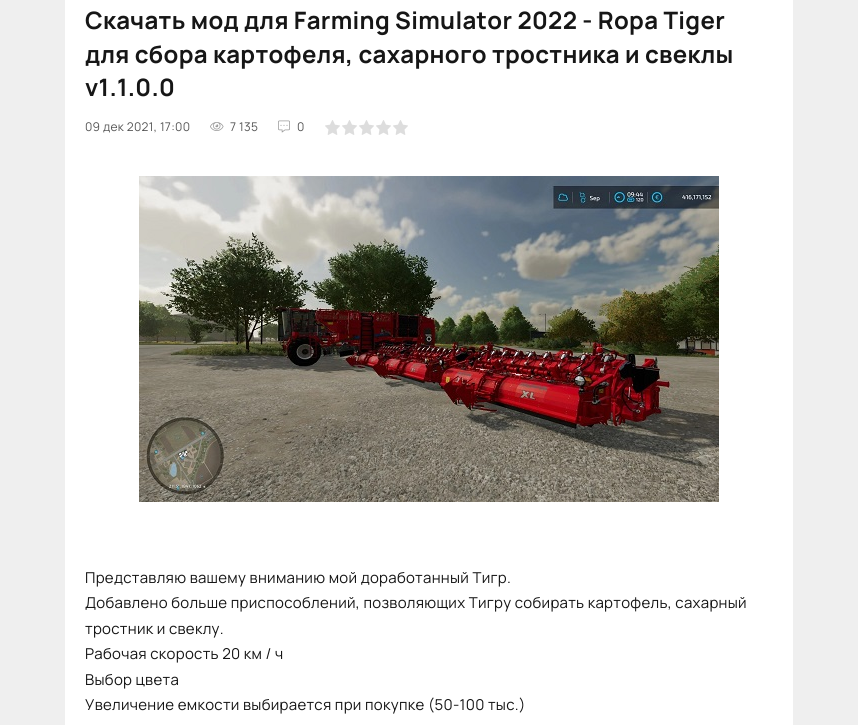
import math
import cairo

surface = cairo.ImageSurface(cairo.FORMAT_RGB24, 858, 725)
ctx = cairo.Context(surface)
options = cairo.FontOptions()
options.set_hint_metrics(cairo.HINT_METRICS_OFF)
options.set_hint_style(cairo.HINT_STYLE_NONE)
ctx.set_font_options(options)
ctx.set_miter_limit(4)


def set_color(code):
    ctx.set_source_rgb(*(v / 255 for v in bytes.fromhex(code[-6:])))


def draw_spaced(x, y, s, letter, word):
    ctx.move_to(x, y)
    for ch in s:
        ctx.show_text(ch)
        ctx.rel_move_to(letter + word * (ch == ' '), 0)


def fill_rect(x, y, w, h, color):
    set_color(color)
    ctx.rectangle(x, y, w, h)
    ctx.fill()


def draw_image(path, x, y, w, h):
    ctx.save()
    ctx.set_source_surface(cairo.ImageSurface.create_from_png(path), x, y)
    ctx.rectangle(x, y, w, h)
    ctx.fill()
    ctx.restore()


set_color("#efefef")
ctx.paint()
fill_rect(65, 0, 728, 725, "#ffffff")
ctx.select_font_face("Manrope ExtraLight")
ctx.set_font_size(24)
set_color("#161616")
draw_spaced(85, 29, "Скачать мод для Farming Simulator 2022 - Ropa Tiger", 0.3, 0)
draw_spaced(85, 63, "для сбора картофеля, сахарного тростника и свеклы", 0.3, 0)
draw_spaced(85, 96, "v1.1.0.0", 0.3, 0)
ctx.select_font_face("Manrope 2 ExtraLight")
ctx.set_font_size(12)
set_color("#565656")
draw_spaced(85, 131, "09 дек 2021, 17:00", 0.3, 0)
draw_image("assets/img1.png", 210, 122, 14, 9)
draw_spaced(230, 131, "7 135", 0.3, 0)
draw_image("assets/img2.png", 278, 120, 12, 13)
draw_spaced(297, 131, "0", 0.3, 0)
draw_image("assets/img3.png", 325, 120, 15, 15)
draw_image("assets/img3.png", 342, 120, 15, 15)
draw_image("assets/img3.png", 359, 120, 15, 15)
draw_image("assets/img3.png", 376, 120, 15, 15)
draw_image("assets/img3.png", 393, 120, 15, 15)
draw_image("assets/img4.png", 139, 176, 580, 326)
ctx.set_font_size(15)
set_color("#161616")
draw_spaced(85, 583, "Представляю вашему вниманию мой доработанный Тигр.", 0.3, 0)
draw_spaced(85, 608, "Добавлено больше приспособлений, позволяющих Тигру собирать картофель, сахарный", 0.3, 0)
draw_spaced(85, 634, "тростник и свеклу.", 0.3, 0)
draw_spaced(85, 659, "Рабочая скорость 20 км / ч", 0.3, 0)
draw_spaced(85, 685, "Выбор цвета", 0.3, 0)
draw_spaced(85, 710, "Увеличение емкости выбирается при покупке (50-100 тыс.)", 0.3, 0)
surface.write_to_png("output.png")
